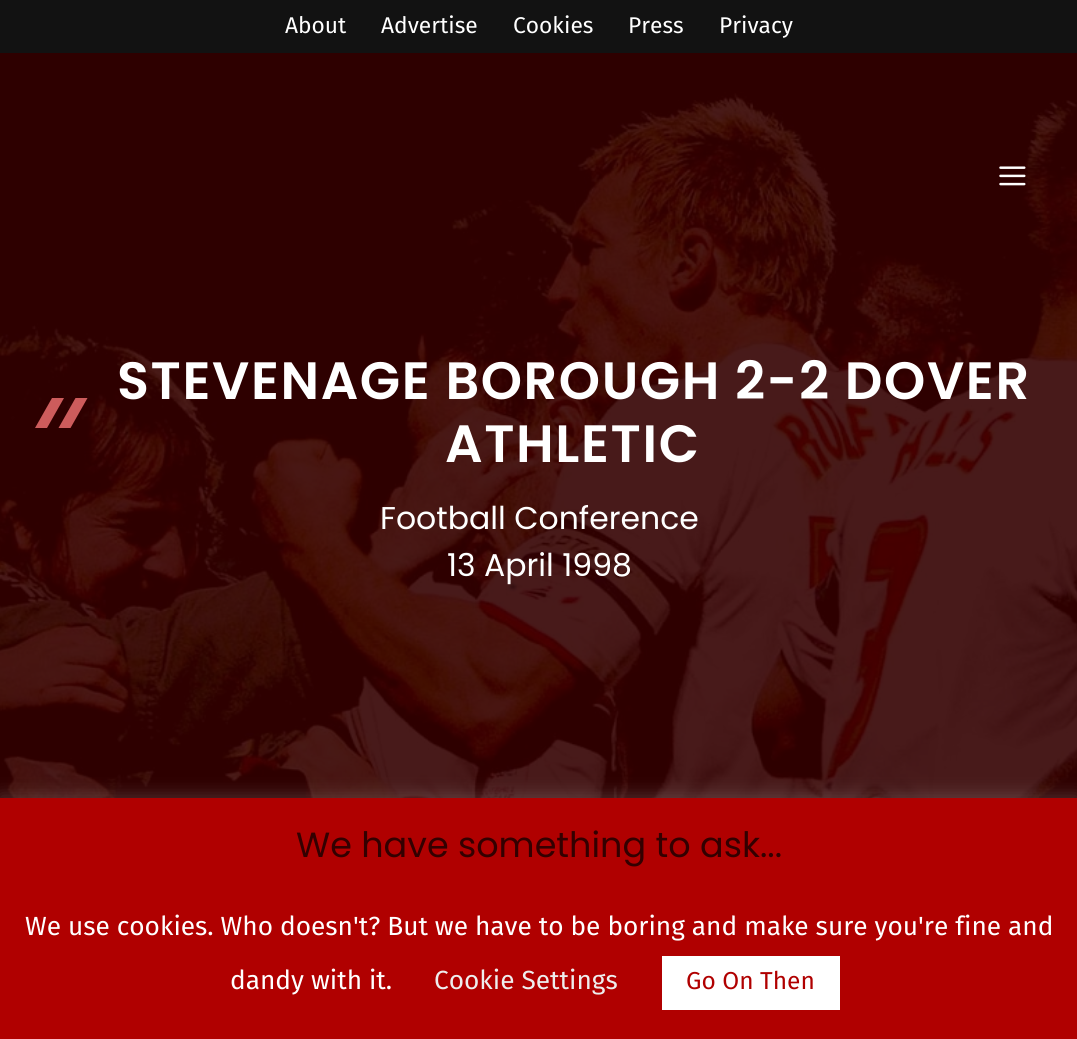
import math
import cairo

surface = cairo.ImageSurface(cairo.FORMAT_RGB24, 1077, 1039)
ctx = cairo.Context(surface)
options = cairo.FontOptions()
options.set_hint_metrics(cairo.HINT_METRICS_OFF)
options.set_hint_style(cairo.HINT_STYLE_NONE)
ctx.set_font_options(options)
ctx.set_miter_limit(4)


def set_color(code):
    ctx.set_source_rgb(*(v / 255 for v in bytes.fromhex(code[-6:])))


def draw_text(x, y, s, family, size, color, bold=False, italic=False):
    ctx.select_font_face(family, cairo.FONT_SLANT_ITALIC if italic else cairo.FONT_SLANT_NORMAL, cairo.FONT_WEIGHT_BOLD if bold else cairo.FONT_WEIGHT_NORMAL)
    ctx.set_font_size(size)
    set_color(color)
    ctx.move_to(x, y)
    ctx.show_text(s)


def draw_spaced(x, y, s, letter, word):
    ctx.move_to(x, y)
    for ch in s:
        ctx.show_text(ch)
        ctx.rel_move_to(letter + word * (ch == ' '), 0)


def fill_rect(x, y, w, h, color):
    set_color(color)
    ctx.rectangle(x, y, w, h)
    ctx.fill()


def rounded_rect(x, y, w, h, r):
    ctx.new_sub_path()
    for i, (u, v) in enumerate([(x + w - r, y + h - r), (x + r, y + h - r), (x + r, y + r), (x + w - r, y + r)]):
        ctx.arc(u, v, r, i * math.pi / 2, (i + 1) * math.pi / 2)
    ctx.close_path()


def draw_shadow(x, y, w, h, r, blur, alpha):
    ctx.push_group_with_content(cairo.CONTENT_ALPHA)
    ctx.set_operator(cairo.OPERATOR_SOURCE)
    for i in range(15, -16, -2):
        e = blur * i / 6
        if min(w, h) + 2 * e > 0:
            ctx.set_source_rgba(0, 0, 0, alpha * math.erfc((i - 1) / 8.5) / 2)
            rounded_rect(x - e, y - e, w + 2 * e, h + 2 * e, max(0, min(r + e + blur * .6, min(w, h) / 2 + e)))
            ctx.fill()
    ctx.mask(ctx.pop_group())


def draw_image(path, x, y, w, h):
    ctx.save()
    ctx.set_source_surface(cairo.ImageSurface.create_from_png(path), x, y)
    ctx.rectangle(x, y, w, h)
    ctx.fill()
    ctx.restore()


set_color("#330000")
ctx.paint()
fill_rect(0, 0, 1077, 53, "#121212")
draw_text(285, 33, "About", "Fira Sans", 22.75, "#ffffff")
draw_text(381, 33, "Advertise", "Fira Sans", 22.75, "#ffffff")
draw_text(513, 33, "Cookies", "Fira Sans", 22.75, "#ffffff")
draw_text(628, 33, "Press", "Fira Sans", 22.75, "#ffffff")
draw_text(719, 33, "Privacy", "Fira Sans", 22.75, "#ffffff")
draw_image("assets/img2.png", 0, 53, 1077, 745)
draw_image("assets/img1.png", 999, 166, 27, 20)
set_color("#cd5c5c")
ctx.new_path()
ctx.move_to(47, 428)
ctx.line_to(35, 428)
ctx.line_to(52, 398)
ctx.line_to(64, 398)
ctx.close_path()
ctx.fill()
ctx.new_path()
ctx.move_to(70.5, 428)
ctx.line_to(58.5, 428)
ctx.line_to(75.5, 398)
ctx.line_to(87.5, 398)
ctx.close_path()
ctx.fill()
ctx.select_font_face("Poppins SemiBold")
ctx.set_font_size(52.5)
set_color("#ffffff")
draw_spaced(117, 399, "STEVENAGE BOROUGH 2-2 DOVER", 1.6, 0)
draw_spaced(445, 462, "ATHLETIC", 1.6, 0)
draw_text(380, 529, "Football Conference", "Poppins", 31.5, "#ffffff")
draw_text(447, 576, "13 April 1998", "Poppins", 31.5, "#ffffff")
set_color("#acabab")
draw_shadow(0, 796, 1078, 242, 0, 9, 0.3)
fill_rect(0, 798, 1077, 241, "#b00000")
draw_text(296, 857, "We have something to ask...", "Poppins", 35, "#330000")
draw_text(25, 935, "We use cookies. Who doesn't? But we have to be boring and make sure you're fine and", "Fira Sans", 26.25, "#ffffff")
draw_text(230, 989, "dandy with it.", "Fira Sans", 26.25, "#ffffff")
draw_text(434, 989, "Cookie Settings", "Fira Sans", 26.25, "#eeeeee")
fill_rect(662, 956, 178, 54, "#ffffff")
draw_text(686, 989, "Go On Then", "Fira Sans", 24.5, "#b00000")
surface.write_to_png("output.png")
